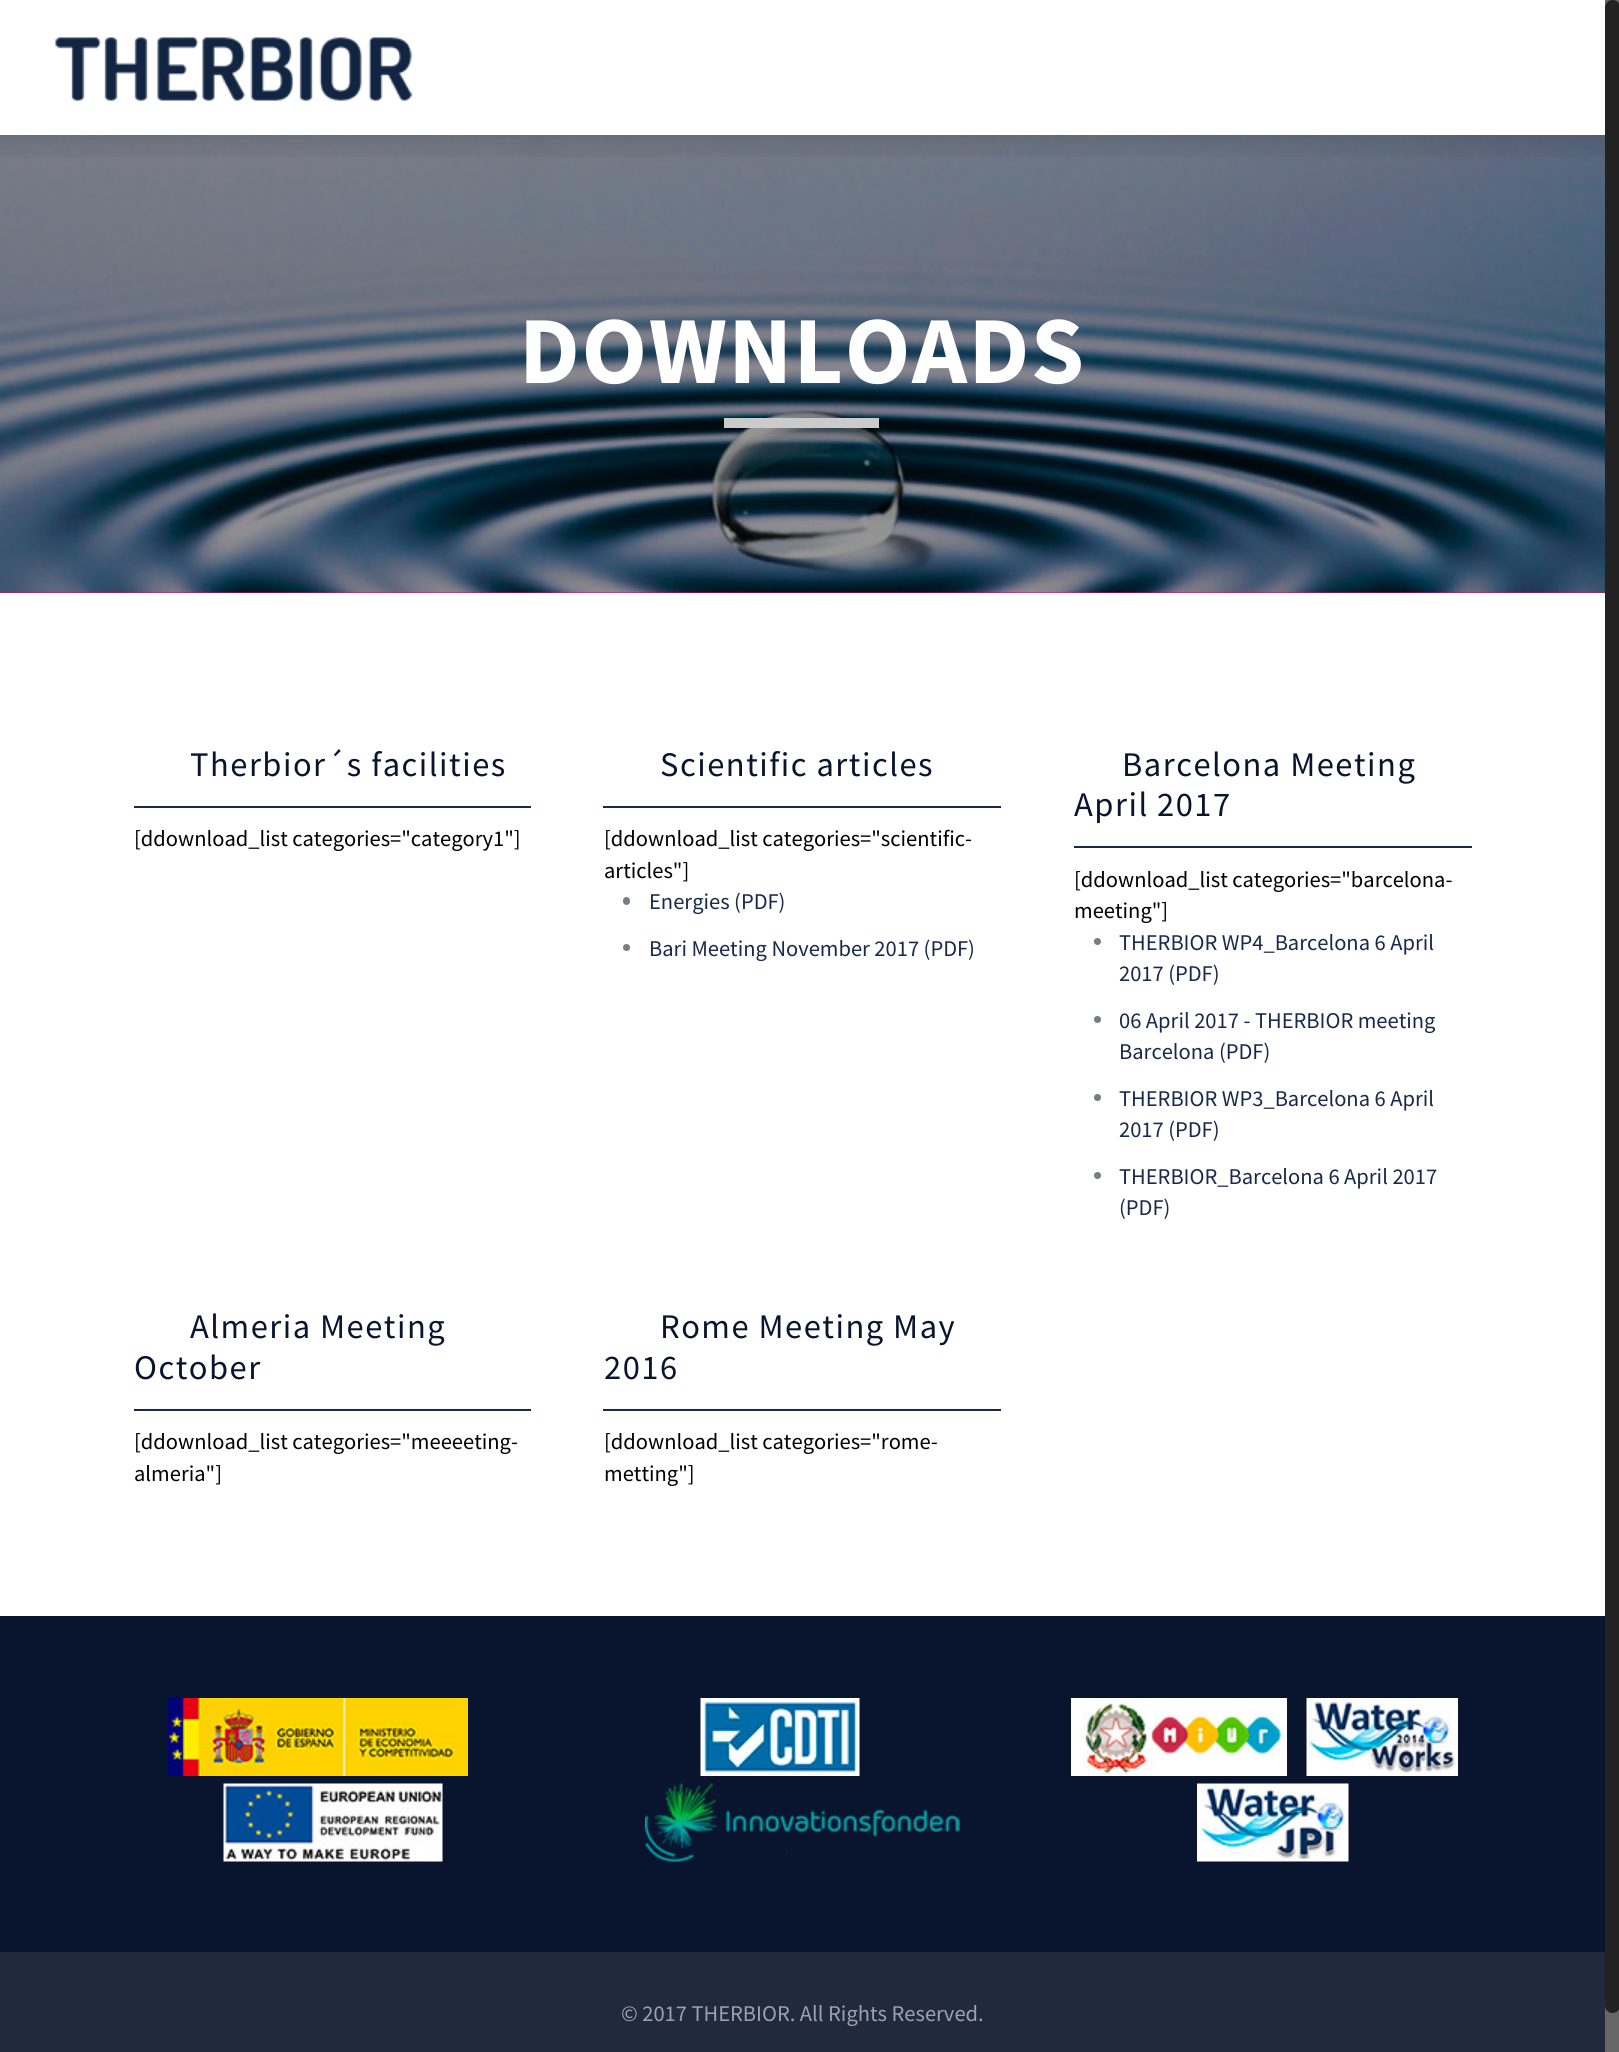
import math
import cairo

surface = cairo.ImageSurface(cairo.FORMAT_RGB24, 1619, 2052)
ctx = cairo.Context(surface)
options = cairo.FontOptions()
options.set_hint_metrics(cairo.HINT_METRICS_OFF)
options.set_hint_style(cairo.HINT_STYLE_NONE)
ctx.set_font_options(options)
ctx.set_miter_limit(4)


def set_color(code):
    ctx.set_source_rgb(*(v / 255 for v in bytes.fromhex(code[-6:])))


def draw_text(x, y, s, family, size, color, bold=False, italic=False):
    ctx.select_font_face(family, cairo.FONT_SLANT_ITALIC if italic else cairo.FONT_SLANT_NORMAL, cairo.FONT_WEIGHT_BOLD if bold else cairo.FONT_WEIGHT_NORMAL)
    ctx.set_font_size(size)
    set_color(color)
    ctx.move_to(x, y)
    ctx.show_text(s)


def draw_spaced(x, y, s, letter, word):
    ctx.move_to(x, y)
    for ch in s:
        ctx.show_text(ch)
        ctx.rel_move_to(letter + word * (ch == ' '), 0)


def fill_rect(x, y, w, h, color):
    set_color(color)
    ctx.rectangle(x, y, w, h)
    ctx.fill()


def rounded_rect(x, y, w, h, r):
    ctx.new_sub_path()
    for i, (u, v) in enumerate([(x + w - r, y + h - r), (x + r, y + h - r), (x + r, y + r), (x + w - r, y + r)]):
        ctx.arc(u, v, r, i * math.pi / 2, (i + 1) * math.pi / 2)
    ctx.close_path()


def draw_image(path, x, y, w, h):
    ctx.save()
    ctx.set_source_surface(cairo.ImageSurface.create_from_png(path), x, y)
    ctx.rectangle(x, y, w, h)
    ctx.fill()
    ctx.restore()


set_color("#ffffff")
ctx.paint()
draw_image("assets/img1.png", 55, 37, 358, 64)
fill_rect(0, 592, 1605, 1, "#ed007b")
draw_image("assets/img3.png", 0, 135, 1605, 458)
draw_image("assets/img2.png", 0, 135, 1605, 22)
ctx.select_font_face("Source Sans Pro", cairo.FONT_SLANT_NORMAL, cairo.FONT_WEIGHT_BOLD)
ctx.set_font_size(96)
set_color("#ffffff")
draw_spaced(519, 383, "DOWNLOADS", 1.5, 0)
fill_rect(724, 418, 155, 10, "#cbcbcb")
ctx.select_font_face("Source Sans Pro")
ctx.set_font_size(34.5)
set_color("#09142f")
draw_spaced(190, 776, "Therbior´s facilities", 1.5, 0)
fill_rect(134, 806, 397, 2, "#1a284b")
draw_text(134, 846, "[ddownload_list categories=\"category1\"]", "Source Sans Pro", 22.5, "#000000")
ctx.set_font_size(34.5)
set_color("#09142f")
draw_spaced(660, 776, "Scientific articles", 1.5, 0)
fill_rect(603, 806, 398, 2, "#1a284b")
draw_text(604, 846, "[ddownload_list categories=\"scientific-", "Source Sans Pro", 22.5, "#000000")
draw_text(604, 878, "articles\"]", "Source Sans Pro", 22.5, "#000000")
set_color("#737e86")
rounded_rect(623, 897, 7, 8, 3.5)
ctx.fill()
draw_text(649, 909, "Energies (PDF)", "Source Sans Pro", 22.5, "#1a284b")
set_color("#737e86")
ctx.new_path()
ctx.arc(626.5, 947.5, 3.5, 0, 2 * math.pi)
ctx.fill()
draw_text(649, 956, "Bari Meeting November 2017 (PDF)", "Source Sans Pro", 22.5, "#1a284b")
ctx.set_font_size(34.5)
set_color("#09142f")
draw_spaced(1122, 776, "Barcelona Meeting", 1.5, 0)
draw_spaced(1074, 816, "April 2017", 1.5, 0)
fill_rect(1074, 846, 398, 2, "#1a284b")
draw_text(1074, 887, "[ddownload_list categories=\"barcelona-", "Source Sans Pro", 22.5, "#000000")
draw_text(1074, 918, "meeting\"]", "Source Sans Pro", 22.5, "#000000")
set_color("#737e86")
ctx.new_path()
ctx.arc(1097.5, 941.5, 3.5, 0, 2 * math.pi)
ctx.fill()
draw_text(1119, 950, "THERBIOR WP4_Barcelona 6 April", "Source Sans Pro", 22.5, "#1a284b")
draw_text(1119, 981, "2017 (PDF)", "Source Sans Pro", 22.5, "#1a284b")
set_color("#737e86")
ctx.new_path()
ctx.arc(1097.5, 1019.5, 3.5, 0, 2 * math.pi)
ctx.fill()
draw_text(1119, 1028, "06 April 2017 - THERBIOR meeting", "Source Sans Pro", 22.5, "#1a284b")
draw_text(1119, 1059, "Barcelona (PDF)", "Source Sans Pro", 22.5, "#1a284b")
set_color("#737e86")
ctx.new_path()
ctx.arc(1097.5, 1097.5, 3.5, 0, 2 * math.pi)
ctx.fill()
draw_text(1119, 1106, "THERBIOR WP3_Barcelona 6 April", "Source Sans Pro", 22.5, "#1a284b")
draw_text(1119, 1137, "2017 (PDF)", "Source Sans Pro", 22.5, "#1a284b")
set_color("#737e86")
ctx.new_path()
ctx.arc(1097.5, 1175.5, 3.5, 0, 2 * math.pi)
ctx.fill()
draw_text(1119, 1184, "THERBIOR_Barcelona 6 April 2017", "Source Sans Pro", 22.5, "#1a284b")
draw_text(1119, 1215, "(PDF)", "Source Sans Pro", 22.5, "#1a284b")
ctx.set_font_size(34.5)
set_color("#09142f")
draw_spaced(190, 1338, "Almeria Meeting", 1.5, 0)
draw_spaced(134, 1379, "October", 1.5, 0)
fill_rect(134, 1409, 397, 2, "#1a284b")
draw_text(134, 1449, "[ddownload_list categories=\"meeeeting-", "Source Sans Pro", 22.5, "#000000")
draw_text(134, 1481, "almeria\"]", "Source Sans Pro", 22.5, "#000000")
ctx.set_font_size(34.5)
set_color("#09142f")
draw_spaced(660, 1338, "Rome Meeting May", 1.5, 0)
draw_spaced(604, 1379, "2016", 1.5, 0)
fill_rect(603, 1409, 398, 2, "#1a284b")
draw_text(604, 1449, "[ddownload_list categories=\"rome-", "Source Sans Pro", 22.5, "#000000")
draw_text(604, 1481, "metting\"]", "Source Sans Pro", 22.5, "#000000")
fill_rect(0, 1616, 1605, 336, "#09142f")
draw_image("assets/img4.png", 168, 1698, 300, 78)
draw_image("assets/img5.png", 223, 1783, 220, 79)
draw_image("assets/img6.png", 700, 1698, 160, 78)
draw_image("assets/img7.png", 645, 1783, 315, 79)
draw_image("assets/img8.png", 1071, 1698, 216, 78)
draw_image("assets/img9.png", 1306, 1698, 152, 78)
draw_image("assets/img10.png", 1197, 1783, 152, 79)
fill_rect(0, 1952, 1605, 100, "#21293f")
draw_text(621, 2021, "© 2017 THERBIOR. All Rights Reserved.", "Source Sans Pro", 22.5, "#9da1ac")
fill_rect(1605, 0, 14, 2052, "#666666")
set_color("#222222")
rounded_rect(1605, 0, 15, 2013, 7.5)
ctx.fill()
surface.write_to_png("output.png")
